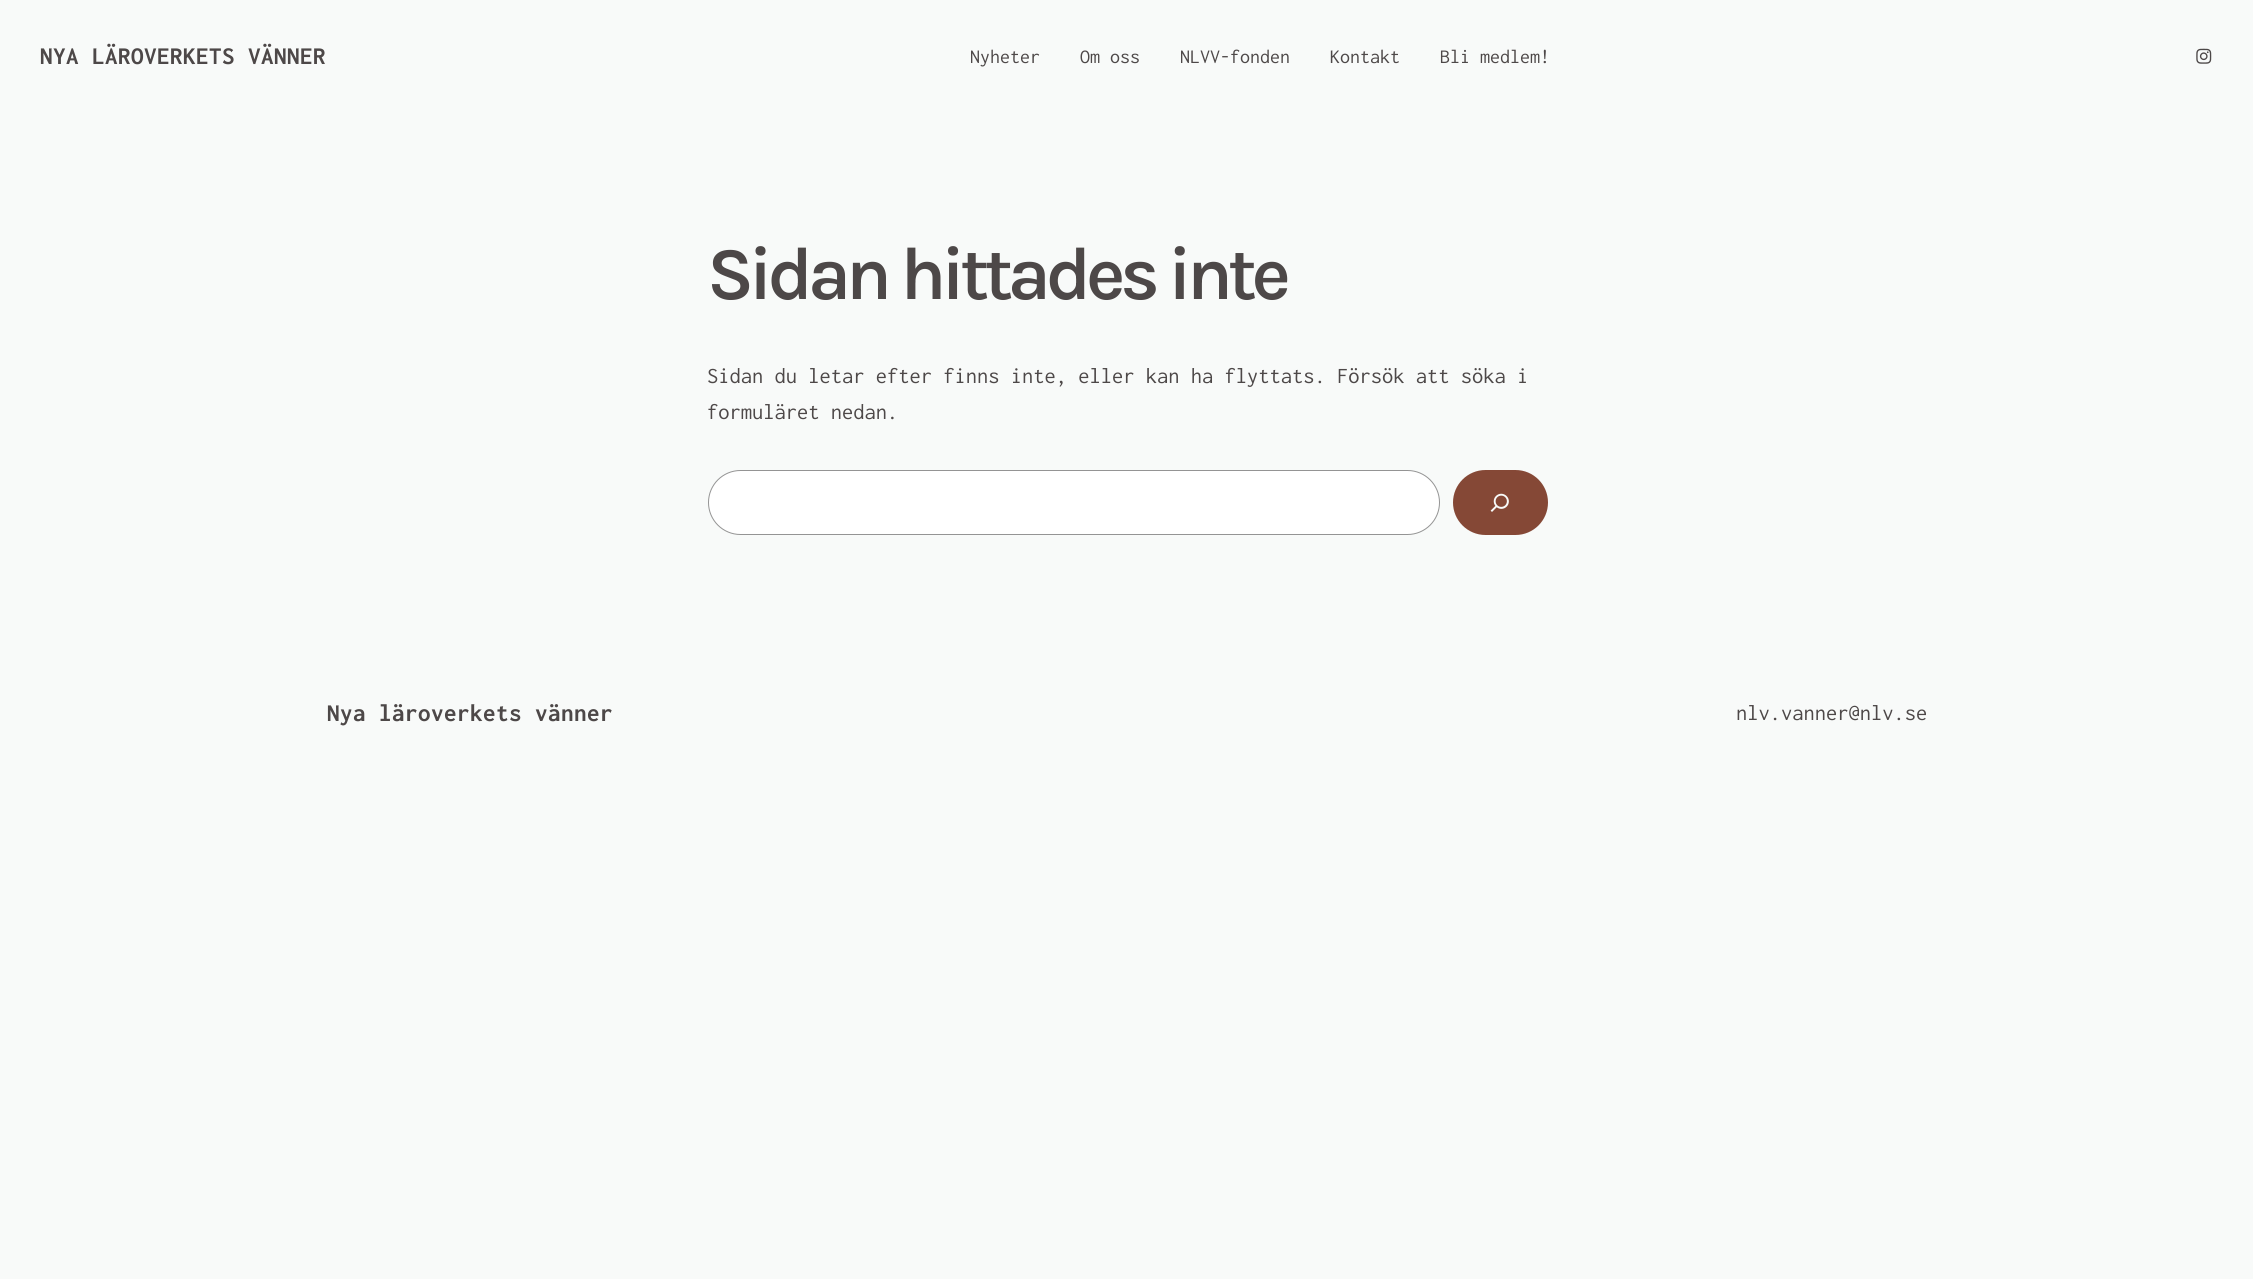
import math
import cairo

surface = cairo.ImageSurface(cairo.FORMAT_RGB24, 2253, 1279)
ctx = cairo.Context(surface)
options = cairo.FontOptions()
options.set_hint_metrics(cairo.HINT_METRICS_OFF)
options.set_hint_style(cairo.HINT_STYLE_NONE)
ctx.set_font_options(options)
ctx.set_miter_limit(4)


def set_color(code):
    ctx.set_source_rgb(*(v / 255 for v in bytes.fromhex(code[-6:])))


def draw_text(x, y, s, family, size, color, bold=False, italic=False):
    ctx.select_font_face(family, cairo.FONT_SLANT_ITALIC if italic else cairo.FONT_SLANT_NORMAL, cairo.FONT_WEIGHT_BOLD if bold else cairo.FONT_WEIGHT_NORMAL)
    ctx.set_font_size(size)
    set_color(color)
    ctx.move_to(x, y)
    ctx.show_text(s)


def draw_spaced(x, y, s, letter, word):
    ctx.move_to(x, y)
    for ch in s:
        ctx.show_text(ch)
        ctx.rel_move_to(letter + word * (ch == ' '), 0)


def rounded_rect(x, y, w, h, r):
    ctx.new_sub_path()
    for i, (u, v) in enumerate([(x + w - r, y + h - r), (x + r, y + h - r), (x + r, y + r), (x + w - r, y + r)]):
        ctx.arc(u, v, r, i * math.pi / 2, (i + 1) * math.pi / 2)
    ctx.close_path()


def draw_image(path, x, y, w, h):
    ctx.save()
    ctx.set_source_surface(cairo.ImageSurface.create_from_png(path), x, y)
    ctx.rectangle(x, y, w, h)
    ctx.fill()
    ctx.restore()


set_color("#f8faf9")
ctx.paint()
ctx.select_font_face("Inconsolata", cairo.FONT_SLANT_NORMAL, cairo.FONT_WEIGHT_BOLD)
ctx.set_font_size(25)
set_color("#4d4848")
draw_spaced(40, 64, "NYA LÄROVERKETS VÄNNER", 0.5, 0)
draw_text(970, 63, "Nyheter", "Inconsolata", 20, "#4d4848")
draw_text(1080, 63, "Om oss", "Inconsolata", 20, "#4d4848")
draw_text(1180, 63, "NLVV-fonden", "Inconsolata", 20, "#4d4848")
draw_text(1330, 63, "Kontakt", "Inconsolata", 20, "#4d4848")
draw_text(1440, 63, "Bli medlem!", "Inconsolata", 20, "#4d4848")
draw_image("assets/img1.png", 2196, 48, 16, 16)
ctx.select_font_face("Karla SemiBold")
ctx.set_font_size(75)
draw_spaced(707, 299, "Sidan hittades inte", -5.25, 0)
draw_text(707, 383, "Sidan du letar efter finns inte, eller kan ha flyttats. Försök att söka i", "Inconsolata", 22.5, "#4d4848")
draw_text(707, 419, "formuläret nedan.", "Inconsolata", 22.5, "#4d4848")
set_color("#ffffff")
rounded_rect(708.5, 470.5, 731, 64, 32)
ctx.fill_preserve()
set_color("#949494")
ctx.set_line_width(1)
ctx.stroke()
set_color("#854836")
rounded_rect(1453, 470, 95, 65, 32.5)
ctx.fill()
draw_image("assets/img2.png", 1490, 493, 19, 19)
ctx.select_font_face("Inconsolata", cairo.FONT_SLANT_NORMAL, cairo.FONT_WEIGHT_BOLD)
ctx.set_font_size(25)
set_color("#4d4848")
draw_spaced(327, 721, "Nya läroverkets vänner", 0.5, 0)
draw_text(1736, 720, "nlv.vanner@nlv.se", "Inconsolata", 22.5, "#4d4848")
surface.write_to_png("output.png")
